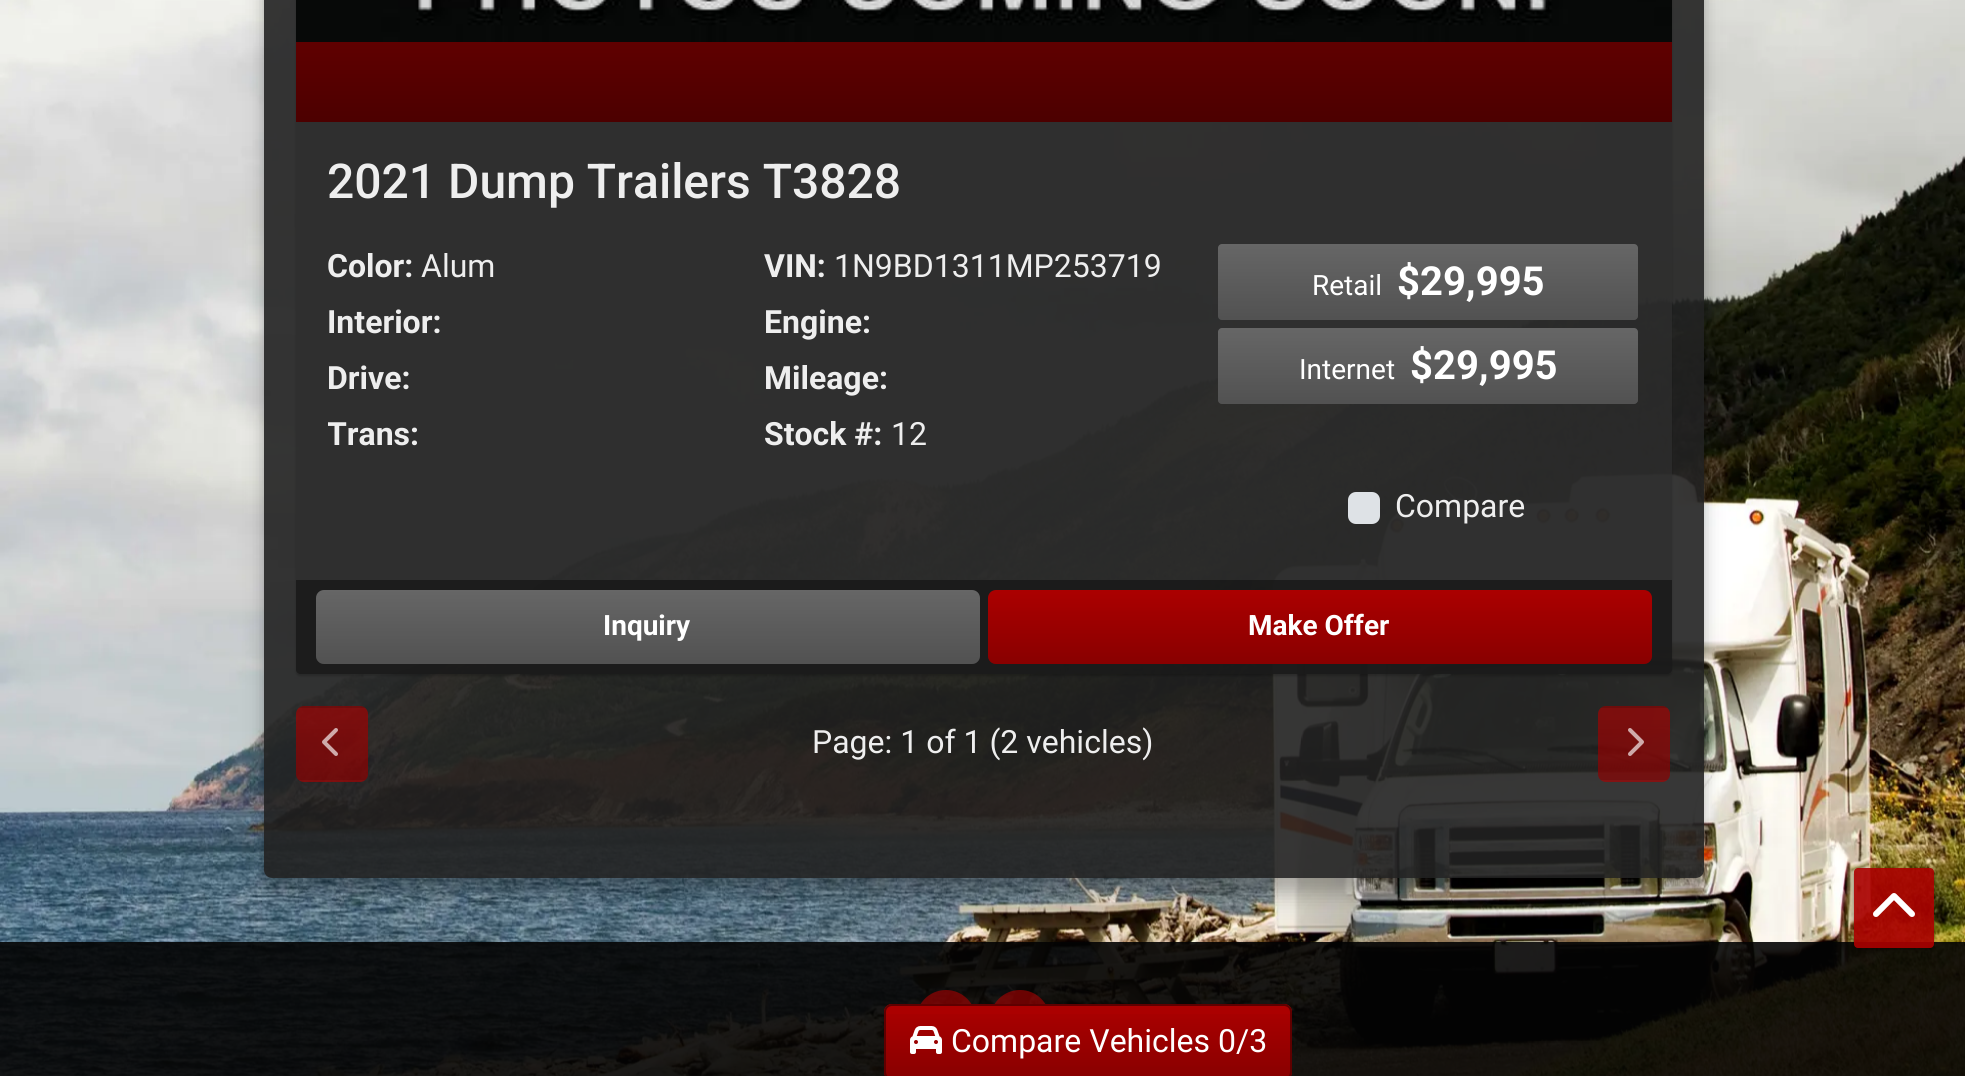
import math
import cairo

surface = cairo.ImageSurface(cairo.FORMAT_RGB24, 1965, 1076)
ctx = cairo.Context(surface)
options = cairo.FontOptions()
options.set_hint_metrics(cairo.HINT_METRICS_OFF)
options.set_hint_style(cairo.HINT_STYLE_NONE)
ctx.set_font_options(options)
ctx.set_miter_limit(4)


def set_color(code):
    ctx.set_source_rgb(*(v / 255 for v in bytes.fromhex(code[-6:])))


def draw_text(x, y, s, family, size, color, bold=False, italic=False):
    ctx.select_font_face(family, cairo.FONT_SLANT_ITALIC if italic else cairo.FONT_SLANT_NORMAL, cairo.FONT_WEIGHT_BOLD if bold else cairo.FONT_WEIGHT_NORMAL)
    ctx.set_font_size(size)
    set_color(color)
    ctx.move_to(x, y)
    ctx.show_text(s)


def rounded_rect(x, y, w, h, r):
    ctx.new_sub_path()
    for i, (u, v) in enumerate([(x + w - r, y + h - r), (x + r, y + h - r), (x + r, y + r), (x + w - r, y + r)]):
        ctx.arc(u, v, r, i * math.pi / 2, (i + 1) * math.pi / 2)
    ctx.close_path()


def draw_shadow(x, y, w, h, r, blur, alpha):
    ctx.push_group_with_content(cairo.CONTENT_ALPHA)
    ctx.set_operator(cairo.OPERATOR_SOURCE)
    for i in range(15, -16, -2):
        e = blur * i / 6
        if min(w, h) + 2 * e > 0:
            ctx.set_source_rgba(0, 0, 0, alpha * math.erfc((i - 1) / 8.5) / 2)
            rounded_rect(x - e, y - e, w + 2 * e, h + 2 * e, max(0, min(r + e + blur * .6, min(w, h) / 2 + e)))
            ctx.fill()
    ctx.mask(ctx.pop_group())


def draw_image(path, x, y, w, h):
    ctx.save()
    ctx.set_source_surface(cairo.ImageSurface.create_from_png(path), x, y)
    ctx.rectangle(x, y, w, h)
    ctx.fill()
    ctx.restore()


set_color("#ffffff")
ctx.paint()
draw_image("assets/img1.png", 0, 0, 1965, 1076)
ctx.save()
ctx.set_fill_rule(cairo.FILL_RULE_EVEN_ODD)
ctx.new_path()
ctx.move_to(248, 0)
ctx.line_to(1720, 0)
ctx.line_to(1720, 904)
ctx.line_to(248, 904)
ctx.close_path()
ctx.move_to(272, -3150)
ctx.line_to(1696, -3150)
ctx.curve_to(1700.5, -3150, 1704, -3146.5, 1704, -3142)
ctx.line_to(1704, 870)
ctx.curve_to(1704, 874.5, 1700.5, 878, 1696, 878)
ctx.line_to(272, 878)
ctx.curve_to(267.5, 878, 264, 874.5, 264, 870)
ctx.line_to(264, -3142)
ctx.curve_to(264, -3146.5, 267.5, -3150, 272, -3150)
ctx.close_path()
ctx.clip()
set_color("#000000")
draw_shadow(264, -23, 1440, 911, 8, 5, 0.1)
ctx.restore()
ctx.save()
ctx.set_fill_rule(cairo.FILL_RULE_EVEN_ODD)
ctx.new_path()
ctx.move_to(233, 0)
ctx.line_to(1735, 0)
ctx.line_to(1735, 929)
ctx.line_to(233, 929)
ctx.close_path()
ctx.move_to(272, -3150)
ctx.line_to(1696, -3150)
ctx.curve_to(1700.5, -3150, 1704, -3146.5, 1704, -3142)
ctx.line_to(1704, 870)
ctx.curve_to(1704, 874.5, 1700.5, 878, 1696, 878)
ctx.line_to(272, 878)
ctx.curve_to(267.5, 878, 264, 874.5, 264, 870)
ctx.line_to(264, -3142)
ctx.curve_to(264, -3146.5, 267.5, -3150, 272, -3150)
ctx.close_path()
ctx.clip()
set_color("#000000")
draw_shadow(264, -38, 1440, 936, 8, 10, 0.2)
ctx.restore()
ctx.set_source_rgba(0.133, 0.133, 0.133, 0.9)
rounded_rect(264, -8, 1440, 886, 8)
ctx.fill()
ctx.save()
ctx.set_fill_rule(cairo.FILL_RULE_EVEN_ODD)
ctx.new_path()
ctx.move_to(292, 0)
ctx.line_to(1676, 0)
ctx.line_to(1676, 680)
ctx.line_to(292, 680)
ctx.close_path()
ctx.move_to(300, -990)
ctx.line_to(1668, -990)
ctx.curve_to(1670, -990, 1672, -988, 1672, -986)
ctx.line_to(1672, 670)
ctx.curve_to(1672, 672, 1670, 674, 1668, 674)
ctx.line_to(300, 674)
ctx.curve_to(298, 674, 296, 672, 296, 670)
ctx.line_to(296, -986)
ctx.curve_to(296, -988, 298, -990, 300, -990)
ctx.close_path()
ctx.clip()
set_color("#000000")
draw_shadow(296, -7, 1376, 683, 4, 1, 0.2)
ctx.restore()
ctx.set_source_rgba(0.184, 0.184, 0.184, 0.7)
rounded_rect(296, -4, 1376, 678, 4)
ctx.fill()
draw_image("assets/img2.png", 296, 0, 1376, 42)
gradient = cairo.LinearGradient(984, 42, 984, 122)
gradient.add_color_stop_rgba(0, 0.373, 0, 0, 1)
gradient.add_color_stop_rgba(1, 0.298, 0, 0, 1)
ctx.set_source(gradient)
ctx.rectangle(296, 42, 1376, 80)
ctx.fill()
draw_text(327, 198, "2021 Dump Trailers T3828", "Roboto Medium", 48, "#eeeeee")
draw_text(327, 277, "Color:", "Roboto", 32, "#eeeeee", bold=True)
draw_text(421, 277, "Alum", "Roboto", 32, "#eeeeee")
draw_text(327, 333, "Interior:", "Roboto", 32, "#eeeeee", bold=True)
draw_text(327, 389, "Drive:", "Roboto", 32, "#eeeeee", bold=True)
ctx.save()
ctx.rectangle(328, 412, 436, 48)
ctx.clip()
draw_text(327, 445, "Trans:", "Roboto", 32, "#eeeeee", bold=True)
ctx.restore()
draw_text(764, 277, "VIN:", "Roboto", 32, "#eeeeee", bold=True)
draw_text(834, 277, "1N9BD1311MP253719", "Roboto", 32, "#eeeeee")
draw_text(764, 333, "Engine:", "Roboto", 32, "#eeeeee", bold=True)
draw_text(764, 389, "Mileage:", "Roboto", 32, "#eeeeee", bold=True)
draw_text(764, 445, "Stock #:", "Roboto", 32, "#eeeeee", bold=True)
draw_text(891, 445, "12", "Roboto", 32, "#eeeeee")
set_color("#666666")
rounded_rect(1218, 244, 420, 76, 4)
ctx.fill()
gradient = cairo.LinearGradient(1428, 244, 1428, 320)
gradient.add_color_stop_rgba(0, 0, 0, 0, 0)
gradient.add_color_stop_rgba(1, 0, 0, 0, 0.2)
ctx.set_source(gradient)
rounded_rect(1218, 244, 420, 76, 4)
ctx.fill()
draw_text(1312, 295, "Retail", "Roboto", 28, "#ffffff")
draw_text(1397, 295, "$29,995", "Roboto", 40, "#ffffff", bold=True)
set_color("#666666")
rounded_rect(1218, 328, 420, 76, 4)
ctx.fill()
gradient = cairo.LinearGradient(1428, 328, 1428, 404)
gradient.add_color_stop_rgba(0, 0, 0, 0, 0)
gradient.add_color_stop_rgba(1, 0, 0, 0, 0.2)
ctx.set_source(gradient)
rounded_rect(1218, 328, 420, 76, 4)
ctx.fill()
draw_text(1299, 379, "Internet", "Roboto", 28, "#ffffff")
draw_text(1410, 379, "$29,995", "Roboto", 40, "#ffffff", bold=True)
set_color("#dee2e6")
rounded_rect(1348, 492, 32, 32, 8)
ctx.fill()
draw_text(1395, 517, "Compare", "Roboto", 32, "#eeeeee")
ctx.set_source_rgba(0.082, 0.082, 0.082, 0.7)
ctx.new_path()
ctx.move_to(296, 580)
ctx.line_to(1672, 580)
ctx.line_to(1672, 670)
ctx.curve_to(1672, 672, 1670, 674, 1668, 674)
ctx.line_to(300, 674)
ctx.curve_to(298, 674, 296, 672, 296, 670)
ctx.close_path()
ctx.fill()
set_color("#666666")
rounded_rect(316, 590, 664, 74, 8)
ctx.fill()
gradient = cairo.LinearGradient(648, 590, 648, 664)
gradient.add_color_stop_rgba(0, 0, 0, 0, 0)
gradient.add_color_stop_rgba(1, 0, 0, 0, 0.2)
ctx.set_source(gradient)
rounded_rect(316, 590, 664, 74, 8)
ctx.fill()
draw_text(603, 635, "Inquiry", "Roboto", 28, "#ffffff", bold=True)
set_color("#ab0000")
rounded_rect(988, 590, 664, 74, 8)
ctx.fill()
gradient = cairo.LinearGradient(1320, 590, 1320, 664)
gradient.add_color_stop_rgba(0, 0, 0, 0, 0)
gradient.add_color_stop_rgba(1, 0, 0, 0, 0.2)
ctx.set_source(gradient)
rounded_rect(988, 590, 664, 74, 8)
ctx.fill()
draw_text(1248, 635, "Make Offer", "Roboto", 28, "#ffffff", bold=True)
ctx.set_source_rgba(0.671, 0, 0, 0.65)
rounded_rect(296, 706, 72, 76, 8)
ctx.fill()
ctx.save()
rounded_rect(296, 706, 72, 76, 8)
ctx.clip()
gradient = cairo.LinearGradient(332, 636, 332, 708)
gradient.add_color_stop_rgba(0, 0, 0, 0, 0)
gradient.add_color_stop_rgba(1, 0, 0, 0, 0.13)
ctx.set_source(gradient)
ctx.rectangle(296, 706, 72, 2)
ctx.fill()
gradient = cairo.LinearGradient(332, 708, 332, 780)
gradient.add_color_stop_rgba(0, 0, 0, 0, 0)
gradient.add_color_stop_rgba(1, 0, 0, 0, 0.13)
ctx.set_source(gradient)
ctx.rectangle(296, 720, 72, 60)
ctx.fill()
ctx.restore()
draw_image("assets/img3.png", 322, 728, 16, 28)
draw_text(812, 753, "Page: 1 of 1 (2 vehicles)", "Roboto", 32, "#eeeeee")
ctx.set_source_rgba(0.671, 0, 0, 0.65)
rounded_rect(1598, 706, 72, 76, 8)
ctx.fill()
ctx.save()
rounded_rect(1598, 706, 72, 76, 8)
ctx.clip()
gradient = cairo.LinearGradient(1634, 636, 1634, 708)
gradient.add_color_stop_rgba(0, 0, 0, 0, 0)
gradient.add_color_stop_rgba(1, 0, 0, 0, 0.13)
ctx.set_source(gradient)
ctx.rectangle(1598, 706, 72, 2)
ctx.fill()
gradient = cairo.LinearGradient(1634, 708, 1634, 780)
gradient.add_color_stop_rgba(0, 0, 0, 0, 0)
gradient.add_color_stop_rgba(1, 0, 0, 0, 0.13)
ctx.set_source(gradient)
ctx.rectangle(1598, 720, 72, 60)
ctx.fill()
ctx.restore()
draw_image("assets/img4.png", 1628, 728, 16, 28)
ctx.set_source_rgba(0.016, 0.016, 0.016, 0.9)
ctx.rectangle(0, 942, 1965, 134)
ctx.fill()
ctx.set_source_rgba(0.671, 0, 0, 0.6)
ctx.arc(946, 1020, 30, 0, 2 * math.pi)
ctx.fill()
ctx.arc(1020, 1020, 30, 0, 2 * math.pi)
ctx.fill()
set_color("#ab0000")
rounded_rect(884, 1004, 408, 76, 8)
ctx.fill()
ctx.save()
rounded_rect(884, 1004, 408, 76, 8)
ctx.clip()
gradient = cairo.LinearGradient(1088, 1006, 1088, 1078)
gradient.add_color_stop_rgba(0, 0, 0, 0, 0)
gradient.add_color_stop_rgba(1, 0, 0, 0, 0.2)
ctx.set_source(gradient)
ctx.rectangle(884, 1014, 408, 62)
ctx.fill()
ctx.restore()
rounded_rect(885, 1005, 406, 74, 7)
set_color("#5f0000")
ctx.stroke()
draw_image("assets/img5.png", 910, 1026, 32, 28)
draw_text(951, 1052, "Compare Vehicles 0/3", "Roboto", 32, "#ffffff")
ctx.save()
ctx.set_fill_rule(cairo.FILL_RULE_EVEN_ODD)
ctx.new_path()
ctx.move_to(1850, 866)
ctx.line_to(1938, 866)
ctx.line_to(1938, 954)
ctx.line_to(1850, 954)
ctx.close_path()
ctx.move_to(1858, 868)
ctx.line_to(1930, 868)
ctx.curve_to(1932, 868, 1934, 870, 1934, 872)
ctx.line_to(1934, 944)
ctx.curve_to(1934, 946, 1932, 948, 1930, 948)
ctx.line_to(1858, 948)
ctx.curve_to(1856, 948, 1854, 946, 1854, 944)
ctx.line_to(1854, 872)
ctx.curve_to(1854, 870, 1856, 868, 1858, 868)
ctx.close_path()
ctx.clip()
set_color("#000000")
draw_shadow(1854, 870, 80, 80, 4, 1, 0.2)
ctx.restore()
ctx.save()
ctx.set_fill_rule(cairo.FILL_RULE_EVEN_ODD)
ctx.new_path()
ctx.move_to(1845, 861)
ctx.line_to(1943, 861)
ctx.line_to(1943, 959)
ctx.line_to(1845, 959)
ctx.close_path()
ctx.move_to(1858, 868)
ctx.line_to(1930, 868)
ctx.curve_to(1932, 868, 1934, 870, 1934, 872)
ctx.line_to(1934, 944)
ctx.curve_to(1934, 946, 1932, 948, 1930, 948)
ctx.line_to(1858, 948)
ctx.curve_to(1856, 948, 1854, 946, 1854, 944)
ctx.line_to(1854, 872)
ctx.curve_to(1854, 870, 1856, 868, 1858, 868)
ctx.close_path()
ctx.clip()
set_color("#000000")
draw_shadow(1852, 868, 84, 84, 6, 2, 0.1)
ctx.restore()
ctx.set_source_rgba(0.671, 0, 0, 0.9)
rounded_rect(1854, 868, 80, 80, 4)
ctx.fill()
draw_image("assets/img6.png", 1873, 893, 42, 24)
surface.write_to_png("output.png")
